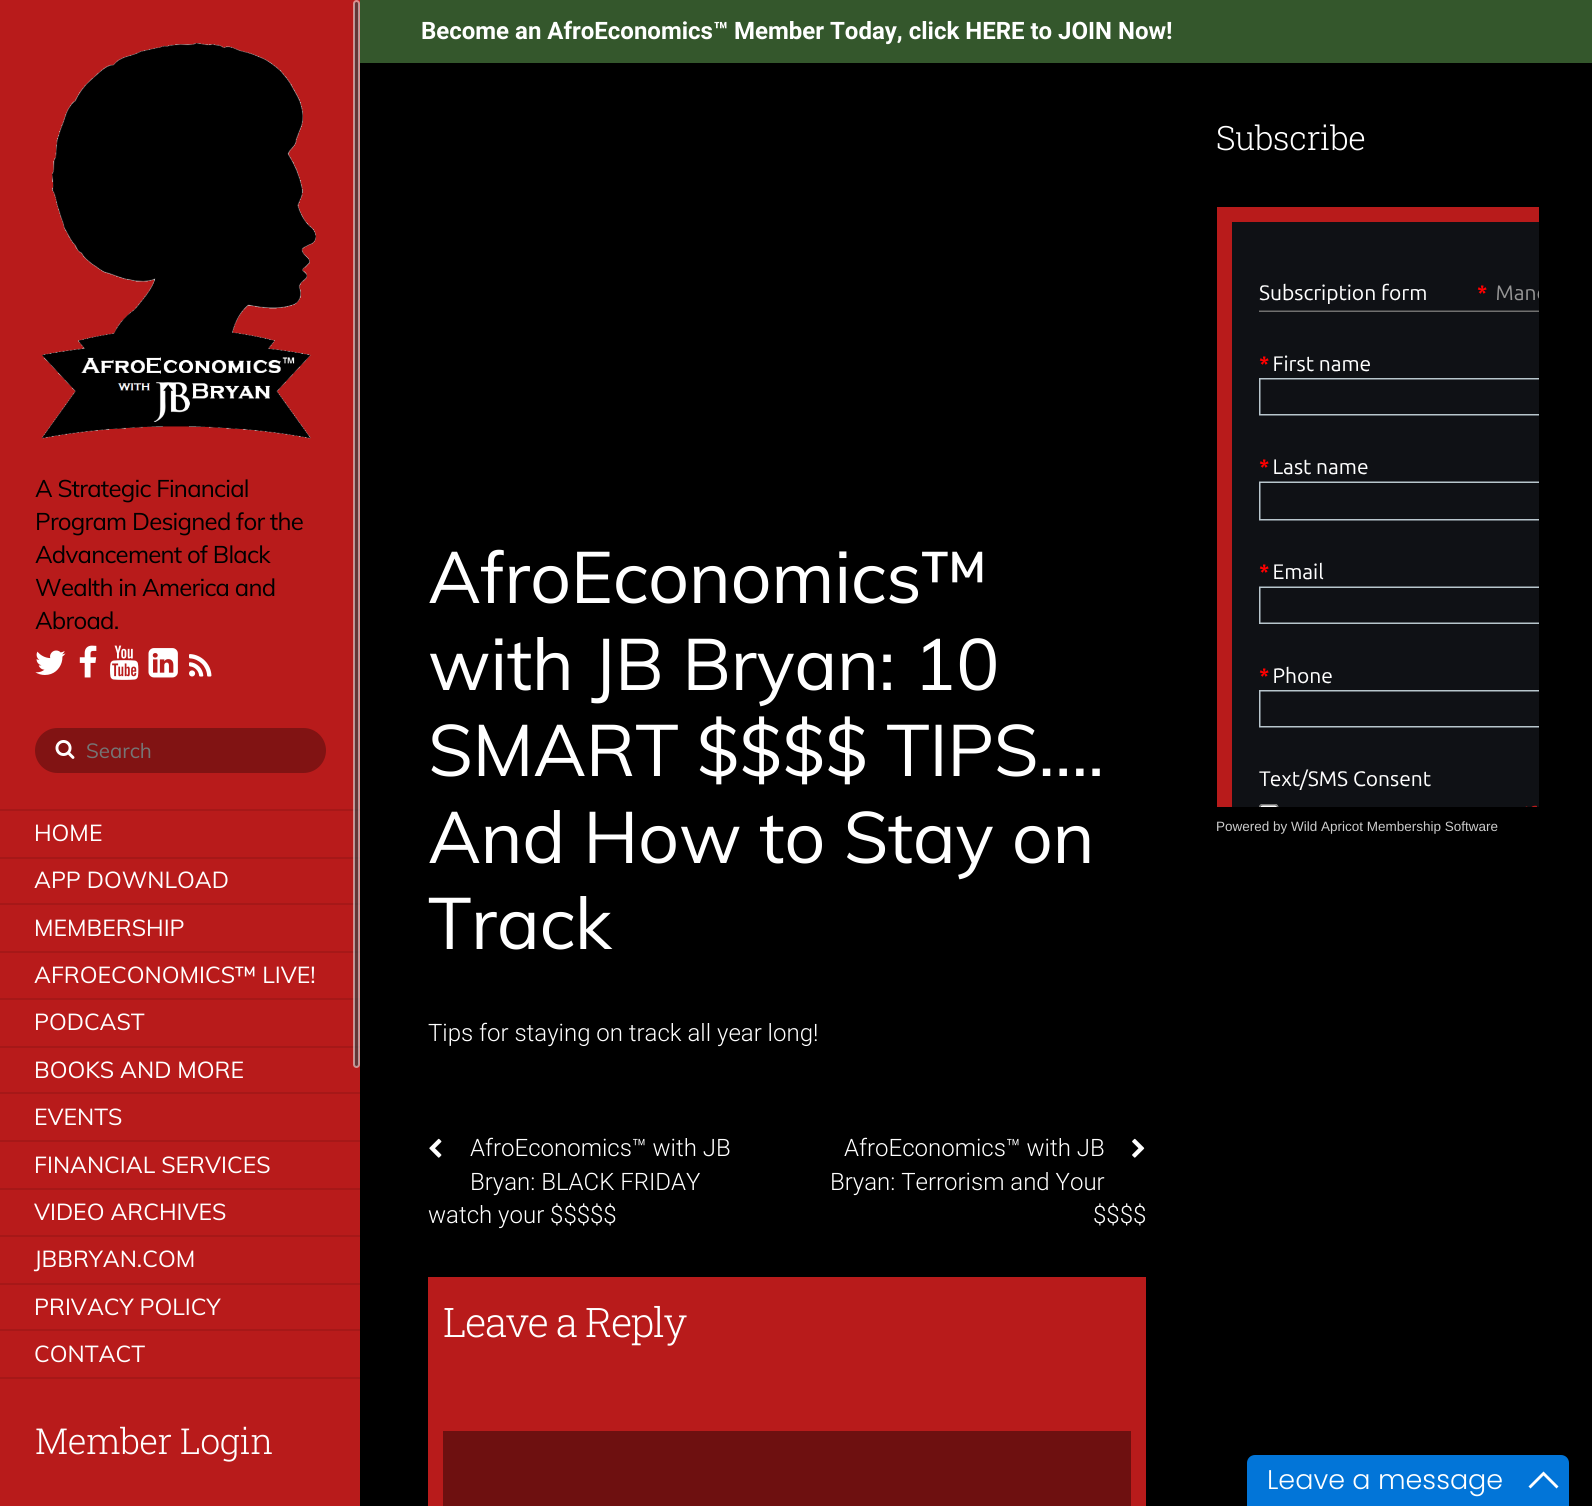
import math
import cairo

surface = cairo.ImageSurface(cairo.FORMAT_RGB24, 1592, 1506)
ctx = cairo.Context(surface)
options = cairo.FontOptions()
options.set_hint_metrics(cairo.HINT_METRICS_OFF)
options.set_hint_style(cairo.HINT_STYLE_NONE)
ctx.set_font_options(options)
ctx.set_miter_limit(4)


def set_color(code):
    ctx.set_source_rgb(*(v / 255 for v in bytes.fromhex(code[-6:])))


def draw_text(x, y, s, family, size, color, bold=False, italic=False):
    ctx.select_font_face(family, cairo.FONT_SLANT_ITALIC if italic else cairo.FONT_SLANT_NORMAL, cairo.FONT_WEIGHT_BOLD if bold else cairo.FONT_WEIGHT_NORMAL)
    ctx.set_font_size(size)
    set_color(color)
    ctx.move_to(x, y)
    ctx.show_text(s)


def draw_spaced(x, y, s, letter, word):
    ctx.move_to(x, y)
    for ch in s:
        ctx.show_text(ch)
        ctx.rel_move_to(letter + word * (ch == ' '), 0)


def fill_rect(x, y, w, h, color):
    set_color(color)
    ctx.rectangle(x, y, w, h)
    ctx.fill()


def rounded_rect(x, y, w, h, r):
    ctx.new_sub_path()
    for i, (u, v) in enumerate([(x + w - r, y + h - r), (x + r, y + h - r), (x + r, y + r), (x + w - r, y + r)]):
        ctx.arc(u, v, r, i * math.pi / 2, (i + 1) * math.pi / 2)
    ctx.close_path()


def draw_image(path, x, y, w, h):
    ctx.save()
    ctx.set_source_surface(cairo.ImageSurface.create_from_png(path), x, y)
    ctx.rectangle(x, y, w, h)
    ctx.fill()
    ctx.restore()


set_color("#000000")
ctx.paint()
fill_rect(360, 0, 1232, 63, "#34572c")
draw_text(421, 39, "Become an AfroEconomics™ Member Today, click HERE to JOIN Now!", "Roboto", 24, "#ffffff", bold=True)
fill_rect(0, 0, 360, 1506, "#b81b1b")
draw_image("assets/img1.png", 42, 43, 274, 396)
ctx.select_font_face("Muli")
set_color("#000000")
draw_spaced(35, 497, "A Strategic Financial", -0.75, 0)
draw_spaced(35, 530, "Program Designed for the", -0.75, 0)
draw_spaced(35, 563, "Advancement of Black", -0.75, 0)
draw_spaced(35, 596, "Wealth in America and", -0.75, 0)
draw_spaced(35, 629, "Abroad.", -0.75, 0)
draw_image("assets/img2.png", 35, 650, 31, 25)
draw_image("assets/img3.png", 79, 645, 18, 33)
draw_image("assets/img4.png", 110, 645, 29, 35)
draw_image("assets/img5.png", 148, 648, 30, 30)
draw_image("assets/img6.png", 189, 654, 23, 23)
set_color("#811313")
rounded_rect(35, 728, 291, 45, 22.5)
ctx.fill()
draw_image("assets/img7.png", 55, 740, 20, 19)
draw_text(86, 758, "Search", "Muli", 20.5, "#757575")
fill_rect(0, 809, 360, 2, "#a61818")
fill_rect(0, 857, 360, 2, "#a61818")
draw_text(34, 841, "HOME", "Muli", 23, "#ffffff")
fill_rect(0, 903, 360, 2, "#a61818")
draw_text(34, 888, "APP DOWNLOAD", "Muli", 23, "#ffffff")
fill_rect(0, 951, 360, 2, "#a61818")
draw_text(34, 936, "MEMBERSHIP", "Muli", 23, "#ffffff")
fill_rect(0, 998, 360, 2, "#a61818")
draw_text(34, 983, "AFROECONOMICS™ LIVE!", "Muli", 23, "#ffffff")
fill_rect(0, 1046, 360, 2, "#a61818")
draw_text(34, 1030, "PODCAST", "Muli", 23, "#ffffff")
fill_rect(0, 1092, 360, 2, "#a61818")
draw_text(34, 1078, "BOOKS AND MORE", "Muli", 23, "#ffffff")
fill_rect(0, 1140, 360, 2, "#a61818")
draw_text(34, 1125, "EVENTS", "Muli", 23, "#ffffff")
fill_rect(0, 1188, 360, 2, "#a61818")
draw_text(34, 1173, "FINANCIAL SERVICES", "Muli", 23, "#ffffff")
fill_rect(0, 1235, 360, 2, "#a61818")
draw_text(34, 1220, "VIDEO ARCHIVES", "Muli", 23, "#ffffff")
fill_rect(0, 1283, 360, 2, "#a61818")
draw_text(34, 1267, "JBBRYAN.COM", "Muli", 23, "#ffffff")
fill_rect(0, 1329, 360, 2, "#a61818")
draw_text(34, 1315, "PRIVACY POLICY", "Muli", 23, "#ffffff")
fill_rect(0, 1377, 360, 2, "#a61818")
draw_text(34, 1362, "CONTACT", "Muli", 23, "#ffffff")
ctx.select_font_face("Roboto Slab Light")
ctx.set_font_size(35.75)
draw_spaced(35, 1454, "Member Login", -0.4, 0)
ctx.set_source_rgba(0.259, 0.259, 0.259, 0.7)
rounded_rect(354, 2, 5, 1065, 2.5)
ctx.fill()
rounded_rect(354, 1, 5, 1066, 2.5)
ctx.set_source_rgba(1, 1, 1, 0.5)
ctx.stroke()
ctx.select_font_face("Muli")
ctx.set_font_size(72)
set_color("#ffffff")
draw_spaced(428, 603, "AfroEconomics™", -0.4, 0)
draw_spaced(428, 690, "with JB Bryan: 10", -0.4, 0)
draw_spaced(428, 776, "SMART $$$$ TIPS….", -0.4, 0)
draw_spaced(428, 863, "And How to Stay on", -0.4, 0)
draw_spaced(428, 949, "Track", -0.4, 0)
draw_text(428, 1041, "Tips for staying on track all year long!", "Roboto Light", 24, "#ffffff")
draw_image("assets/img8.png", 429, 1138, 13, 20)
draw_text(470, 1156, "AfroEconomics™ with JB", "Roboto Light", 24, "#ffffff")
draw_text(470, 1190, "Bryan: BLACK FRIDAY", "Roboto Light", 24, "#ffffff")
draw_text(428, 1223, "watch your $$$$$", "Roboto Light", 24, "#ffffff")
draw_text(844, 1156, "AfroEconomics™ with JB", "Roboto Light", 24, "#ffffff")
draw_image("assets/img9.png", 1132, 1138, 13, 20)
draw_text(830, 1190, "Bryan: Terrorism and Your", "Roboto Light", 24, "#ffffff")
draw_text(1093, 1223, "$$$$", "Roboto Light", 24, "#ffffff")
fill_rect(428, 1277, 718, 229, "#b81b1b")
ctx.select_font_face("Roboto Slab Light")
ctx.set_font_size(40.75)
set_color("#ffffff")
draw_spaced(443, 1337, "Leave a Reply", -1.5, 0)
fill_rect(443, 1431, 688, 75, "#6e1010")
ctx.set_font_size(33.5)
set_color("#ffffff")
draw_spaced(1216, 150, "Subscribe", -0.25, 0)
draw_image("assets/img10.png", 1217, 207, 322, 600)
draw_text(1216, 831, "Powered by Wild Apricot Membership Software", "Liberation Sans", 13.5, "#cccccc")
set_color("#0275d8")
ctx.new_path()
ctx.move_to(1255, 1455)
ctx.line_to(1561, 1455)
ctx.curve_to(1565.5, 1455, 1569, 1458.5, 1569, 1463)
ctx.line_to(1569, 1506)
ctx.line_to(1247, 1506)
ctx.line_to(1247, 1463)
ctx.curve_to(1247, 1458.5, 1250.5, 1455, 1255, 1455)
ctx.close_path()
ctx.fill()
draw_text(1267, 1489, "Leave a message", "Poppins Light", 27, "#ffffff")
ctx.new_path()
ctx.move_to(1543.5, 1471.5)
ctx.line_to(1558.5, 1486.5)
ctx.line_to(1556.5, 1488.5)
ctx.line_to(1543.5, 1475.5)
ctx.line_to(1530.5, 1488.5)
ctx.line_to(1528.5, 1486.5)
ctx.close_path()
ctx.fill()
surface.write_to_png("output.png")
